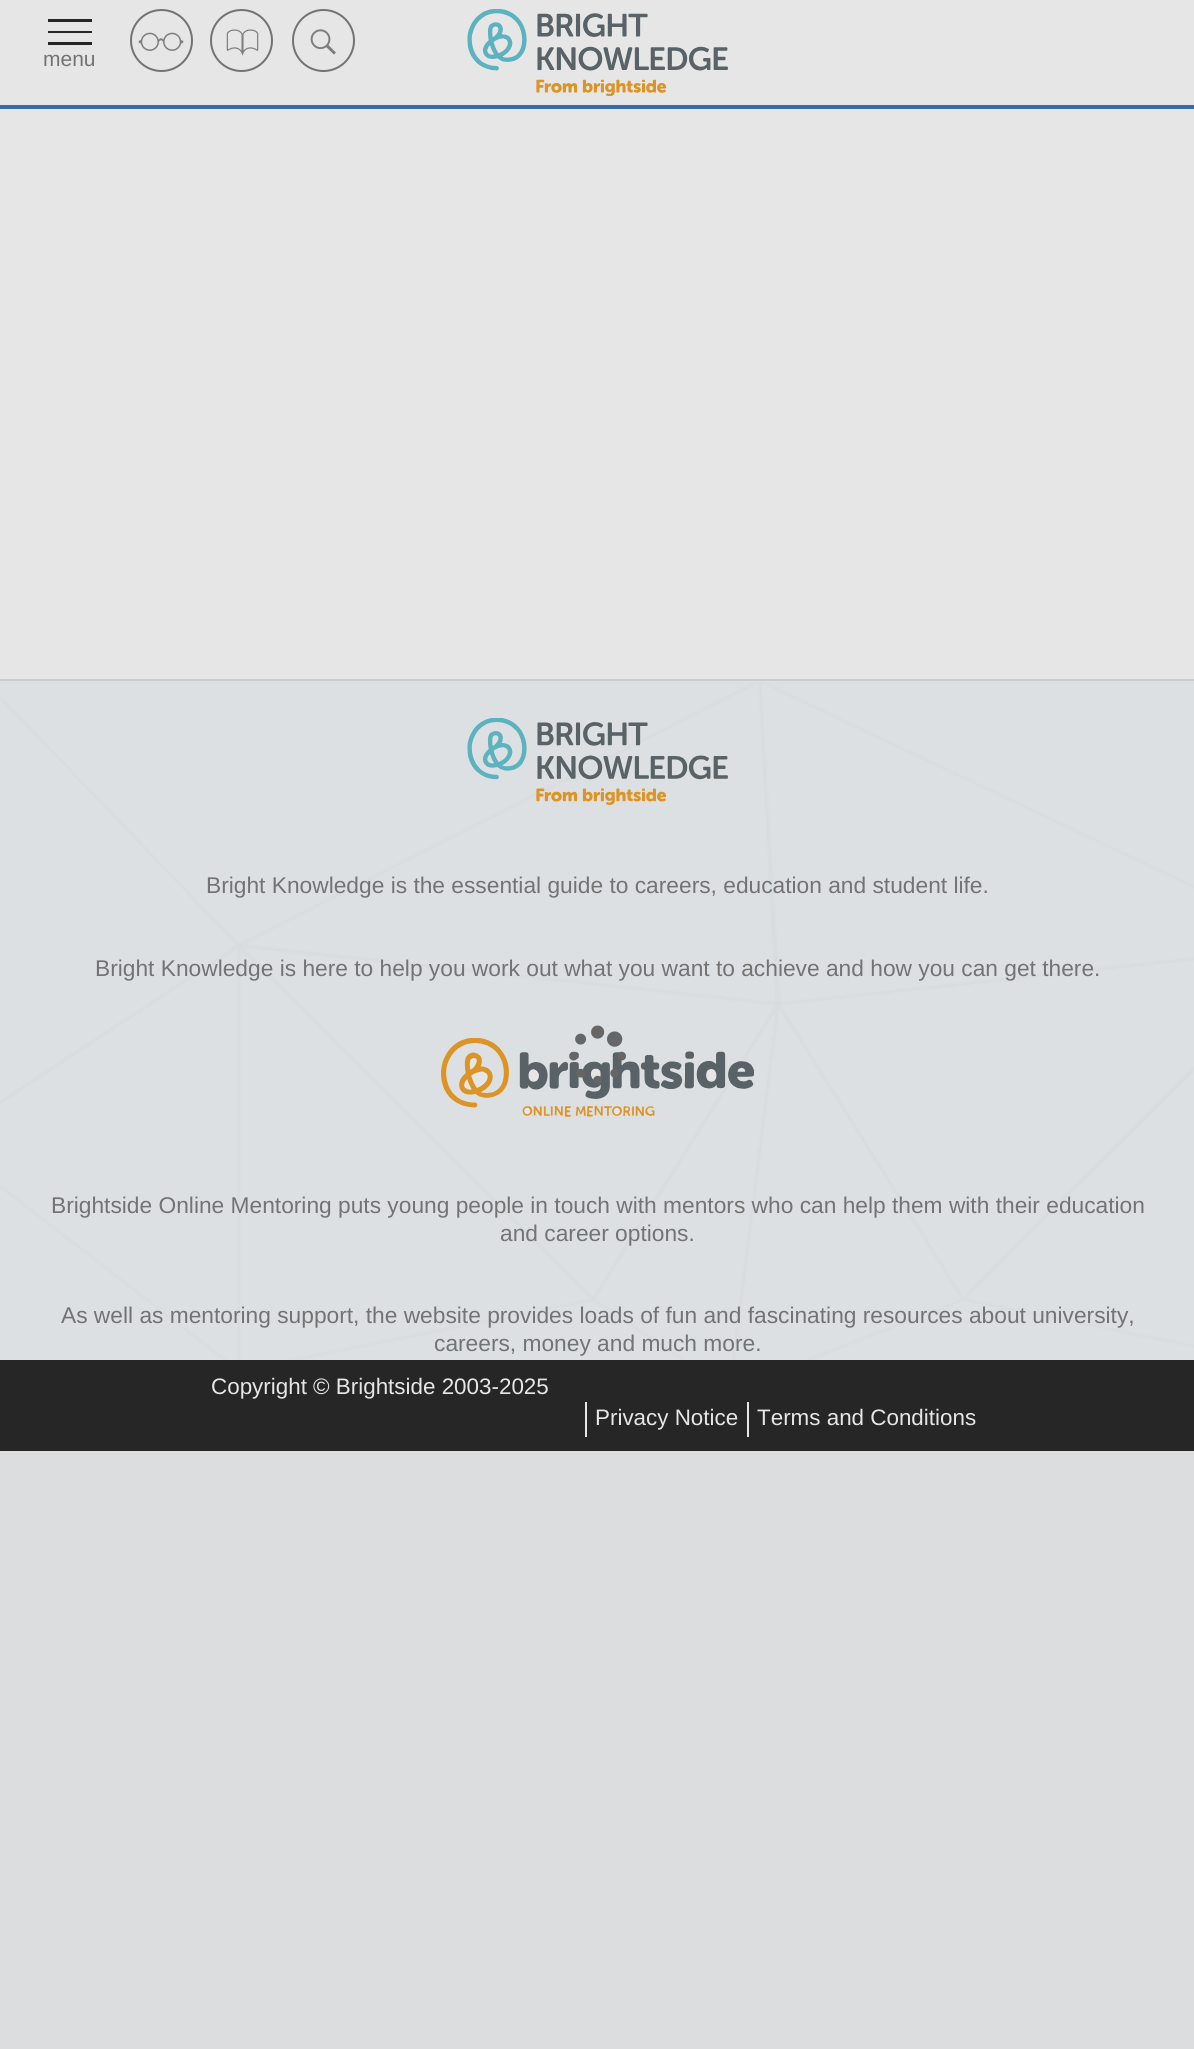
import math
import cairo

surface = cairo.ImageSurface(cairo.FORMAT_RGB24, 1194, 2049)
ctx = cairo.Context(surface)
options = cairo.FontOptions()
options.set_hint_metrics(cairo.HINT_METRICS_OFF)
options.set_hint_style(cairo.HINT_STYLE_NONE)
ctx.set_font_options(options)
ctx.set_miter_limit(4)


def set_color(code):
    ctx.set_source_rgb(*(v / 255 for v in bytes.fromhex(code[-6:])))


def draw_text(x, y, s, family, size, color, bold=False, italic=False):
    ctx.select_font_face(family, cairo.FONT_SLANT_ITALIC if italic else cairo.FONT_SLANT_NORMAL, cairo.FONT_WEIGHT_BOLD if bold else cairo.FONT_WEIGHT_NORMAL)
    ctx.set_font_size(size)
    set_color(color)
    ctx.move_to(x, y)
    ctx.show_text(s)


def fill_rect(x, y, w, h, color):
    set_color(color)
    ctx.rectangle(x, y, w, h)
    ctx.fill()


def draw_image(path, x, y, w, h):
    ctx.save()
    ctx.set_source_surface(cairo.ImageSurface.create_from_png(path), x, y)
    ctx.rectangle(x, y, w, h)
    ctx.fill()
    ctx.restore()


set_color("#dbdddf")
ctx.paint()
fill_rect(0, 0, 1194, 105, "#e6e6e6")
fill_rect(0, 105, 1194, 4, "#386bae")
fill_rect(48, 19, 44, 3, "#262626")
fill_rect(48, 31, 44, 2, "#262626")
fill_rect(48, 42, 44, 3, "#262626")
draw_text(43, 66, "menu", "Liberation Sans", 21, "#737373")
ctx.new_path()
ctx.arc(161.5, 40.5, 30.5, 0, 2 * math.pi)
ctx.stroke()
draw_image("assets/img1.png", 138, 32, 46, 19)
ctx.arc(241.5, 40.5, 30.5, 0, 2 * math.pi)
ctx.stroke()
draw_image("assets/img2.png", 226, 29, 33, 27)
ctx.arc(323.5, 40.5, 30.5, 0, 2 * math.pi)
ctx.stroke()
draw_image("assets/img3.png", 310, 29, 26, 26)
draw_image("assets/img4.png", 467, 9, 261, 87)
fill_rect(0, 109, 1194, 570, "#e6e6e6")
fill_rect(0, 679, 1194, 2, "#cccccc")
fill_rect(0, 681, 1194, 679, "#dde0e2")
draw_image("assets/img5.png", 0, 682, 1194, 678)
draw_image("assets/img6.png", 467, 718, 261, 87)
draw_text(206, 893, "Bright Knowledge is the essential guide to careers, education and student life.", "Liberation Sans", 22.75, "#737373")
draw_text(95, 976, "Bright Knowledge is here to help you work out what you want to achieve and how you can get there.", "Liberation Sans", 22.75, "#737373")
draw_image("assets/img7.png", 441, 1038, 313, 79)
draw_text(51, 1213, "Brightside Online Mentoring puts young people in touch with mentors who can help them with their education", "Liberation Sans", 22.75, "#737373")
draw_text(500, 1241, "and career options.", "Liberation Sans", 22.75, "#737373")
draw_text(61, 1323, "As well as mentoring support, the website provides loads of fun and fascinating resources about university,", "Liberation Sans", 22.75, "#737373")
draw_text(434, 1351, "careers, money and much more.", "Liberation Sans", 22.75, "#737373")
fill_rect(0, 1360, 1194, 91, "#262626")
draw_text(211, 1394, "Copyright © Brightside 2003-2025", "Liberation Sans", 22.4, "#e6e6e6")
fill_rect(585, 1402, 2, 35, "#e6e6e6")
draw_text(595, 1425, "Privacy Notice", "Liberation Sans", 22.4, "#e6e6e6")
fill_rect(747, 1402, 2, 35, "#e6e6e6")
draw_text(757, 1425, "Terms and Conditions", "Liberation Sans", 22.4, "#e6e6e6")
draw_image("assets/img8.png", 569, 1025, 57, 60)
surface.write_to_png("output.png")
